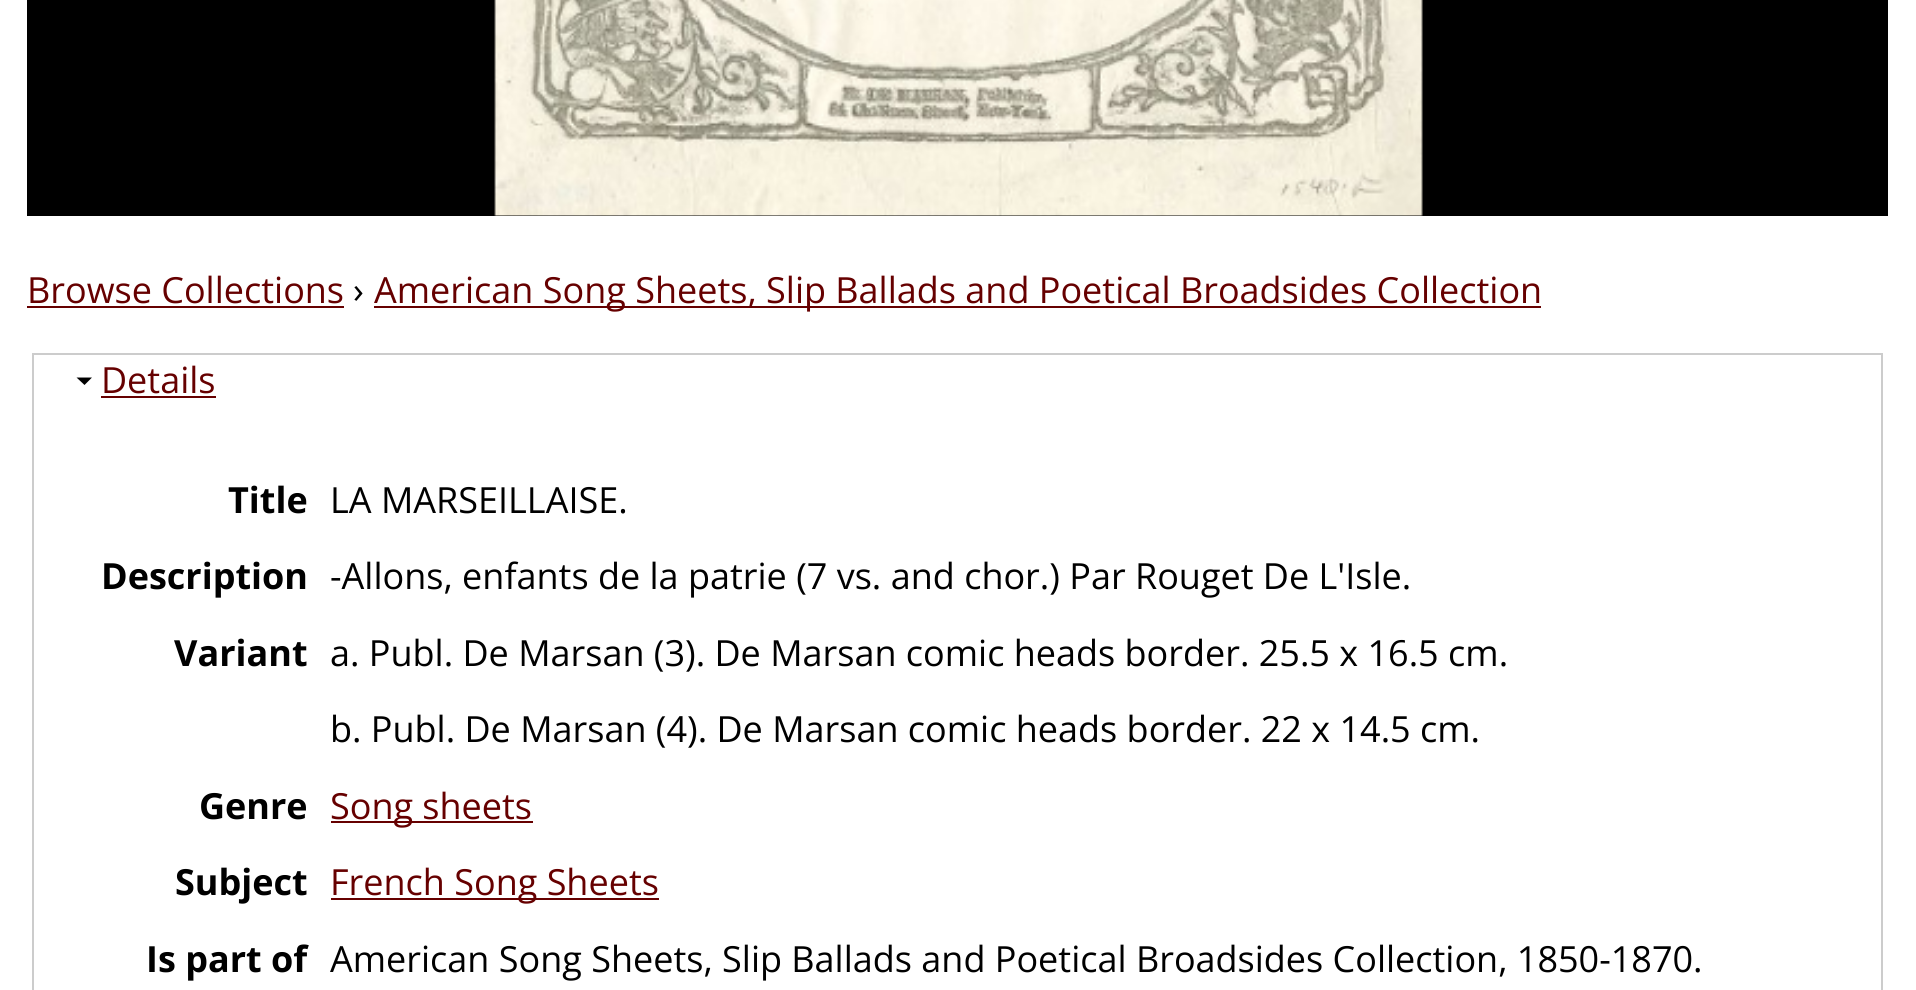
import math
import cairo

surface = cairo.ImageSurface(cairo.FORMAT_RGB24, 1916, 990)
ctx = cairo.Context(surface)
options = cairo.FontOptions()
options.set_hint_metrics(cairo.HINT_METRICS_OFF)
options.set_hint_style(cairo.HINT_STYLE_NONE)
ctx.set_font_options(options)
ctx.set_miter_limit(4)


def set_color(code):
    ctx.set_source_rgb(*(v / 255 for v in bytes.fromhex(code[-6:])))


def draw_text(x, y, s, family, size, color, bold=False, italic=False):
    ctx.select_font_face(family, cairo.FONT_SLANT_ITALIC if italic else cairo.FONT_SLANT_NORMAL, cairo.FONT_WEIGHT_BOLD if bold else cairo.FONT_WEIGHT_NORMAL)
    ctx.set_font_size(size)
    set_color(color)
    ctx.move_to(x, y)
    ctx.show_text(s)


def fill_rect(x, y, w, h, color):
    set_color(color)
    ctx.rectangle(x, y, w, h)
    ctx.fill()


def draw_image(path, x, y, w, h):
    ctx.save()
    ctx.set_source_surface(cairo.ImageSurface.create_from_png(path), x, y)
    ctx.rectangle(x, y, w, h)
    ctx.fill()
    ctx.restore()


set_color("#ffffff")
ctx.paint()
fill_rect(27, 0, 1861, 216, "#000000")
draw_image("assets/img1.png", 494, 0, 929, 216)
draw_text(27, 303, "Browse Collections", "Open Sans", 36, "#660000")
fill_rect(27, 306, 317, 2, "#660000")
draw_text(353, 303, "›", "Open Sans", 36, "#000000")
fill_rect(374, 306, 1167, 2, "#660000")
draw_text(374, 303, "American Song Sheets, Slip Ballads and Poetical Broadsides Collection", "Open Sans", 36, "#660000")
ctx.rectangle(33, 354, 1849, 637)
set_color("#cccccc")
ctx.stroke()
set_color("#000000")
ctx.new_path()
ctx.move_to(92, 377.5)
ctx.line_to(84.5, 385)
ctx.line_to(76.5, 377.5)
ctx.close_path()
ctx.fill()
draw_text(101, 393, "Details", "Open Sans", 36, "#660000")
fill_rect(101, 396, 115, 2, "#660000")
draw_text(228, 513, "Title", "Open Sans", 36, "#000000", bold=True)
draw_text(330, 513, "LA MARSEILLAISE.", "Open Sans", 36, "#000000")
draw_text(101, 589, "Description", "Open Sans", 36, "#000000", bold=True)
draw_text(330, 589, "-Allons, enfants de la patrie (7 vs. and chor.) Par Rouget De L'Isle.", "Open Sans", 36, "#000000")
draw_text(174, 666, "Variant", "Open Sans", 36, "#000000", bold=True)
draw_text(330, 666, "a. Publ. De Marsan (3). De Marsan comic heads border. 25.5 x 16.5 cm.", "Open Sans", 36, "#000000")
draw_text(330, 742, "b. Publ. De Marsan (4). De Marsan comic heads border. 22 x 14.5 cm.", "Open Sans", 36, "#000000")
draw_text(199, 819, "Genre", "Open Sans", 36, "#000000", bold=True)
fill_rect(331, 821, 202, 2, "#660000")
draw_text(330, 819, "Song sheets", "Open Sans", 36, "#660000")
draw_text(175, 895, "Subject", "Open Sans", 36, "#000000", bold=True)
fill_rect(331, 898, 328, 2, "#660000")
draw_text(330, 895, "French Song Sheets", "Open Sans", 36, "#660000")
draw_text(146, 972, "Is part of", "Open Sans", 36, "#000000", bold=True)
draw_text(330, 972, "American Song Sheets, Slip Ballads and Poetical Broadsides Collection, 1850-1870.", "Open Sans", 36, "#000000")
surface.write_to_png("output.png")
